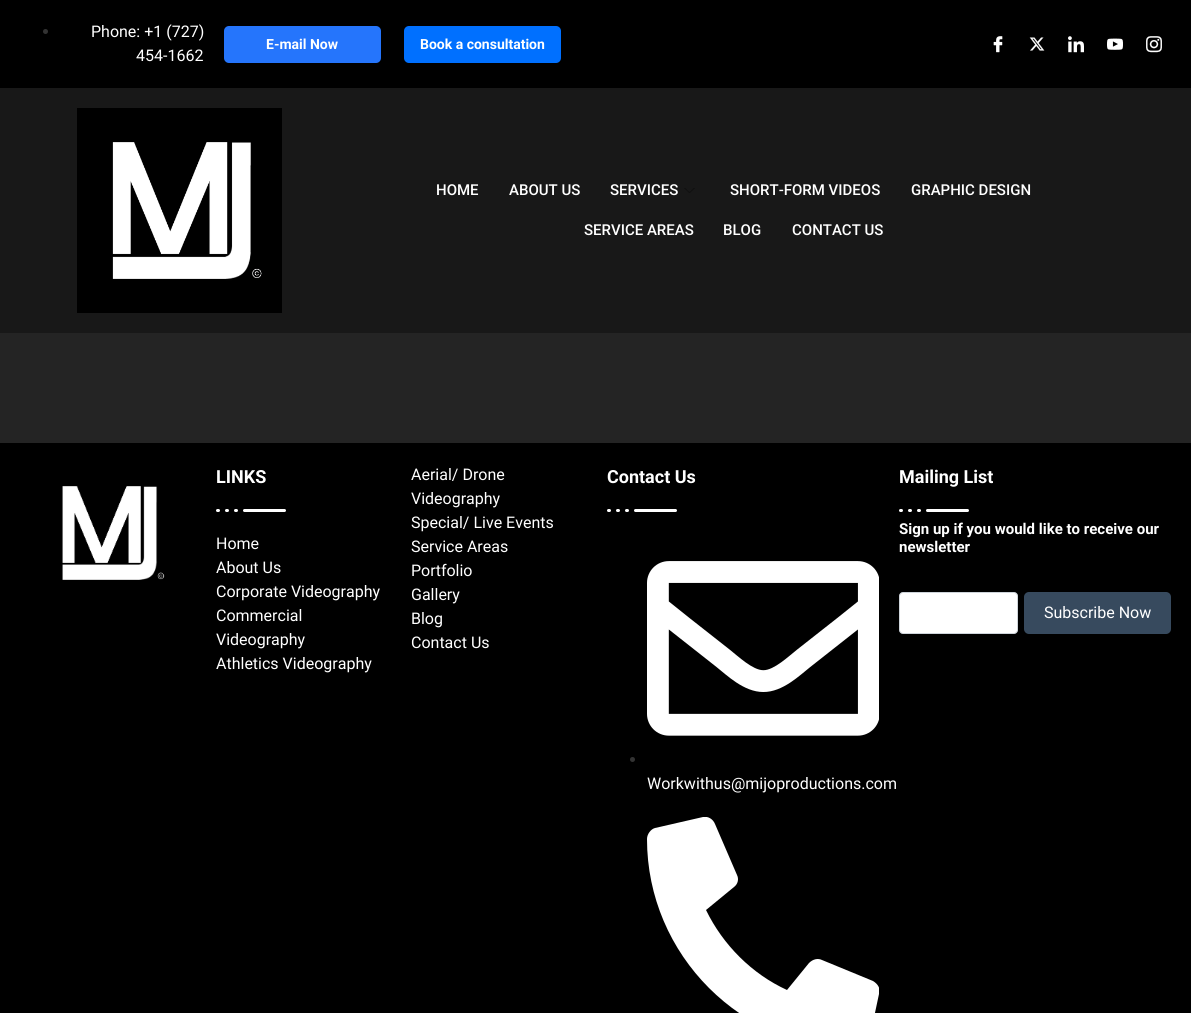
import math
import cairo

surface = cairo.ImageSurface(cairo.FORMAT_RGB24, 1191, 1013)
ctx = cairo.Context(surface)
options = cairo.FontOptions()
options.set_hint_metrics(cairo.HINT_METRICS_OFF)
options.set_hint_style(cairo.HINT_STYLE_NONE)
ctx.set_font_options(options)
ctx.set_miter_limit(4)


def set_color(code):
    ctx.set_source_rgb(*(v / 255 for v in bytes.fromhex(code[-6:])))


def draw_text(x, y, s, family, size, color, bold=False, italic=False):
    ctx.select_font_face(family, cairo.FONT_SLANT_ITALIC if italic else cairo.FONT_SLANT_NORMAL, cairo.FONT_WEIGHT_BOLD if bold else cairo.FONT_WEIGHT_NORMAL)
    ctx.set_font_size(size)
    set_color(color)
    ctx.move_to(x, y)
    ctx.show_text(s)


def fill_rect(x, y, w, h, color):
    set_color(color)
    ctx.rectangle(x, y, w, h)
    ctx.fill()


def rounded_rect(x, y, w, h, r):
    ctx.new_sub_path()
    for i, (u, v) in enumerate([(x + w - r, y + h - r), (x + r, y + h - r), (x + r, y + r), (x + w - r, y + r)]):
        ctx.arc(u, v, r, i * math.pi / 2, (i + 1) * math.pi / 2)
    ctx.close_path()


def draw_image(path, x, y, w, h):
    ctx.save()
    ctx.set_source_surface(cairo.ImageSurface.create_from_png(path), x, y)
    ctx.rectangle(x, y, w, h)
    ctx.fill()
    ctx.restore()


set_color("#242424")
ctx.paint()
fill_rect(0, 0, 1191, 88, "#000000")
set_color("#333333")
ctx.arc(45.5, 31.5, 2.5, 0, 2 * math.pi)
ctx.fill()
draw_text(91, 37, "Phone: +1 (727)", "Roboto", 16, "#ffffff")
draw_text(136, 61, "454-1662", "Roboto", 16, "#ffffff")
set_color("#2575fc")
rounded_rect(224, 26, 157, 37, 5)
ctx.fill()
draw_text(266, 49, "E-mail Now", "Roboto", 14, "#ffffff", bold=True)
set_color("#0070ff")
rounded_rect(404, 26, 157, 37, 5)
ctx.fill()
draw_text(420, 49, "Book a consultation", "Roboto", 14, "#ffffff", bold=True)
draw_image("assets/img1.png", 993, 36, 10, 17)
draw_image("assets/img2.png", 1029, 37, 16, 14)
draw_image("assets/img3.png", 1068, 36, 16, 17)
draw_image("assets/img4.png", 1107, 38, 16, 12)
draw_image("assets/img5.png", 1146, 36, 16, 17)
fill_rect(0, 88, 1191, 245, "#181818")
draw_image("assets/img6.png", 77, 108, 205, 205)
draw_text(436, 195, "HOME", "Roboto Medium", 15, "#ffffff")
draw_text(509, 195, "ABOUT US", "Roboto Medium", 15, "#ffffff")
draw_text(610, 195, "SERVICES", "Roboto Medium", 15, "#ffffff")
draw_image("assets/img7.png", 684, 188, 11, 5)
draw_text(730, 195, "SHORT-FORM VIDEOS", "Roboto Medium", 15, "#ffffff")
draw_text(911, 195, "GRAPHIC DESIGN", "Roboto Medium", 15, "#ffffff")
draw_text(584, 235, "SERVICE AREAS", "Roboto Medium", 15, "#ffffff")
draw_text(723, 235, "BLOG", "Roboto Medium", 15, "#ffffff")
draw_text(792, 235, "CONTACT US", "Roboto Medium", 15, "#ffffff")
fill_rect(0, 443, 1191, 570, "#000000")
draw_image("assets/img8.png", 62, 486, 103, 94)
draw_text(216, 483, "LINKS", "Roboto", 18, "#ffffff", bold=True)
rounded_rect(243, 509, 43, 3, 1.5)
ctx.fill()
rounded_rect(234, 509, 4, 3, 1.5)
ctx.fill()
rounded_rect(225, 509, 4, 3, 1.5)
ctx.fill()
rounded_rect(216, 509, 4, 3, 1.5)
ctx.fill()
draw_text(216, 549, "Home", "Roboto", 16, "#ffffff")
draw_text(216, 573, "About Us", "Roboto", 16, "#ffffff")
draw_text(216, 597, "Corporate Videography", "Roboto", 16, "#ffffff")
draw_text(216, 621, "Commercial", "Roboto", 16, "#ffffff")
draw_text(216, 645, "Videography", "Roboto", 16, "#ffffff")
draw_text(216, 669, "Athletics Videography", "Roboto", 16, "#ffffff")
draw_text(411, 480, "Aerial/ Drone", "Roboto", 16, "#ffffff")
draw_text(411, 504, "Videography", "Roboto", 16, "#ffffff")
draw_text(411, 528, "Special/ Live Events", "Roboto", 16, "#ffffff")
draw_text(411, 552, "Service Areas", "Roboto", 16, "#ffffff")
draw_text(411, 576, "Portfolio", "Roboto", 16, "#ffffff")
draw_text(411, 600, "Gallery", "Roboto", 16, "#ffffff")
draw_text(411, 624, "Blog", "Roboto", 16, "#ffffff")
draw_text(411, 648, "Contact Us", "Roboto", 16, "#ffffff")
draw_text(607, 483, "Contact Us", "Roboto", 18, "#ffffff", bold=True)
rounded_rect(634, 509, 43, 3, 1.5)
ctx.fill()
rounded_rect(625, 509, 4, 3, 1.5)
ctx.fill()
rounded_rect(616, 509, 4, 3, 1.5)
ctx.fill()
rounded_rect(607, 509, 4, 3, 1.5)
ctx.fill()
draw_image("assets/img9.png", 647, 561, 232, 175)
set_color("#333333")
ctx.arc(632.5, 759.5, 2.5, 0, 2 * math.pi)
ctx.fill()
draw_text(647, 789, "Workwithus@mijoproductions.com", "Roboto", 16, "#ffffff")
ctx.save()
ctx.rectangle(647, 817, 232, 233)
ctx.clip()
ctx.new_path()
ctx.move_to(873, 981)
ctx.line_to(822, 960)
ctx.curve_to(818, 958, 813, 959, 809, 963)
ctx.line_to(787, 990)
ctx.curve_to(752, 974, 723, 945, 706, 910)
ctx.line_to(734, 887)
ctx.curve_to(738, 884, 739, 879, 737, 875)
ctx.line_to(715, 824)
ctx.curve_to(713, 819, 708, 816, 703, 817)
ctx.line_to(655, 828)
ctx.curve_to(651, 829, 647, 834, 647, 839)
ctx.curve_to(647, 955, 742, 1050, 858, 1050)
ctx.curve_to(863, 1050, 867, 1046, 869, 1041)
ctx.line_to(879, 994)
ctx.curve_to(881, 989, 878, 984, 873, 981)
ctx.close_path()
ctx.fill()
ctx.restore()
draw_text(899, 483, "Mailing List", "Roboto", 18, "#ffffff", bold=True)
rounded_rect(926, 509, 43, 3, 1.5)
ctx.fill()
rounded_rect(917, 509, 4, 3, 1.5)
ctx.fill()
rounded_rect(908, 509, 4, 3, 1.5)
ctx.fill()
rounded_rect(899, 509, 4, 3, 1.5)
ctx.fill()
draw_text(899, 534, "Sign up if you would like to receive our", "Roboto", 15, "#ffffff", bold=True)
draw_text(899, 552, "newsletter", "Roboto", 15, "#ffffff", bold=True)
rounded_rect(899.5, 592.5, 118, 41, 3.5)
ctx.fill_preserve()
set_color("#ced4da")
ctx.set_line_width(1)
ctx.stroke()
set_color("#374a5e")
rounded_rect(1024, 592, 147, 42, 5)
ctx.fill()
draw_text(1044, 618, "Subscribe Now", "Roboto", 16, "#ffffff")
surface.write_to_png("output.png")
